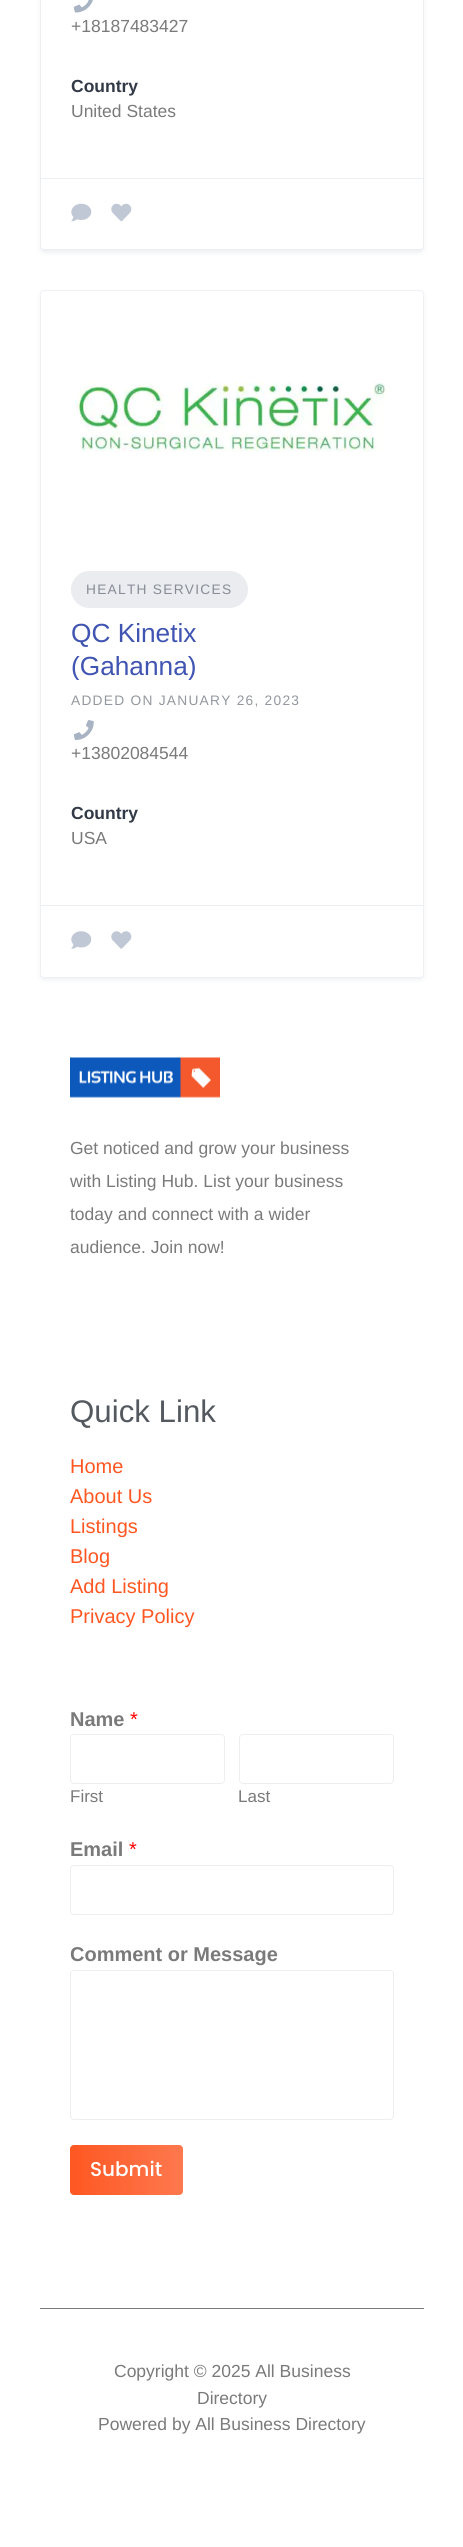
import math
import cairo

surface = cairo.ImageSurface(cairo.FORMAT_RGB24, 463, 2547)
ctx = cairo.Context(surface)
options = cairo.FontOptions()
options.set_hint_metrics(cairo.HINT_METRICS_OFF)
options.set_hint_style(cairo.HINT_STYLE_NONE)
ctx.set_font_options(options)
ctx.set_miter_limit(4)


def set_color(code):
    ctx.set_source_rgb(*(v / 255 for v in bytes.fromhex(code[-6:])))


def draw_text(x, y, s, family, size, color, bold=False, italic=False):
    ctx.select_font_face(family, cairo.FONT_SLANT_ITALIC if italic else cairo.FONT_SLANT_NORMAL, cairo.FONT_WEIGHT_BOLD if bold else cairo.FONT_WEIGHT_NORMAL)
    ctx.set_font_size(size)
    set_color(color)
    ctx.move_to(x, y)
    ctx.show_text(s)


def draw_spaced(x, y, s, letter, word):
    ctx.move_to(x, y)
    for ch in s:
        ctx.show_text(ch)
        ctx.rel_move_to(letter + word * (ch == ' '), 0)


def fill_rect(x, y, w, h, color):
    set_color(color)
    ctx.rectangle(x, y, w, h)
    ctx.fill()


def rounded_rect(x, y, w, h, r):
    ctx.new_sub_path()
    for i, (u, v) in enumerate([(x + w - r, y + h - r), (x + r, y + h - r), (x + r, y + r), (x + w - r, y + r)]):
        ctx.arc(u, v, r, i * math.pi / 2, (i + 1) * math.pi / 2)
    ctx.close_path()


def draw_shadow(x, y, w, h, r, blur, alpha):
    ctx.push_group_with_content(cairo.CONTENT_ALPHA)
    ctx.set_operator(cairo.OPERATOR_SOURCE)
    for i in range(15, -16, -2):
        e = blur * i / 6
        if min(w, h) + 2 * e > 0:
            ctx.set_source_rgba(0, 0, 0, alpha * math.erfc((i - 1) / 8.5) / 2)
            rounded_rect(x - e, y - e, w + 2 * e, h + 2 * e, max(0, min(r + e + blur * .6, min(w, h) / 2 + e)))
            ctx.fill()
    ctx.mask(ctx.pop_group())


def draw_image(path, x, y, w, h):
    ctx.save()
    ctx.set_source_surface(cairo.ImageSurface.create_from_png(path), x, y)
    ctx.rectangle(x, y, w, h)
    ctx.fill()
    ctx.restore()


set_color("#ffffff")
ctx.paint()
set_color("#072456")
draw_shadow(40, -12, 384, 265, 4, 2.5, 0.07)
set_color("#ffffff")
rounded_rect(40.5, -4.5, 383, 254, 3.5)
ctx.fill_preserve()
set_color("#eceff2")
ctx.set_line_width(1)
ctx.stroke()
draw_image("assets/img1.png", 73, 0, 20, 13)
draw_text(71, 32, "+18187483427", "Liberation Sans", 17.5, "#7a7a7a")
draw_text(71, 92, "Country", "Liberation Sans", 17.5, "#333a47", bold=True)
draw_text(71, 117, "United States", "Liberation Sans", 17.5, "#7a7a7a")
fill_rect(41, 178, 382, 1, "#eceff2")
draw_image("assets/img2.png", 71, 203, 21, 19)
draw_image("assets/img3.png", 111, 203, 21, 19)
set_color("#072456")
draw_shadow(40, 293, 384, 687, 4, 2.5, 0.07)
set_color("#ffffff")
rounded_rect(40, 290, 384, 688, 4)
ctx.fill()
rounded_rect(40.5, 290.5, 383, 687, 3.5)
ctx.set_source_rgba(0.027, 0.141, 0.337, 0.07)
ctx.stroke()
draw_image("assets/img4.png", 74, 382, 314, 70)
set_color("#eaecf0")
rounded_rect(71, 571, 177, 37, 18.5)
ctx.fill()
ctx.set_font_size(13.75)
set_color("#878c96")
draw_spaced(86, 594, "HEALTH SERVICES", 1.25, 0)
draw_text(71, 642, "QC Kinetix", "Liberation Sans", 26.25, "#4054b2")
ctx.save()
ctx.rectangle(71, 618, 250, 62)
ctx.clip()
draw_text(71, 675, "(Gahanna)", "Liberation Sans", 26.25, "#4054b2")
ctx.restore()
ctx.set_font_size(13.75)
set_color("#93979e")
draw_spaced(71, 705, "ADDED ON JANUARY 26, 2023", 1.25, 0)
draw_image("assets/img5.png", 73, 720, 21, 20)
draw_text(71, 759, "+13802084544", "Liberation Sans", 17.5, "#7a7a7a")
draw_text(71, 819, "Country", "Liberation Sans", 17.5, "#333a47", bold=True)
draw_text(71, 844, "USA", "Liberation Sans", 17.5, "#7a7a7a")
fill_rect(41, 905, 382, 1, "#eceff2")
draw_image("assets/img6.png", 71, 931, 21, 18)
draw_image("assets/img7.png", 111, 931, 21, 18)
draw_image("assets/img8.png", 70, 1057, 150, 41)
draw_text(70, 1154, "Get noticed and grow your business", "Liberation Sans", 17.5, "#7a7a7a")
draw_text(70, 1187, "with Listing Hub. List your business", "Liberation Sans", 17.5, "#7a7a7a")
draw_text(70, 1220, "today and connect with a wider", "Liberation Sans", 17.5, "#7a7a7a")
draw_text(70, 1253, "audience. Join now!", "Liberation Sans", 17.5, "#7a7a7a")
draw_text(70, 1422, "Quick Link", "Liberation Sans", 31.25, "#54595f")
draw_text(70, 1473, "Home", "Liberation Sans", 20, "#ff5722")
draw_text(70, 1503, "About Us", "Liberation Sans", 20, "#ff5722")
draw_text(70, 1533, "Listings", "Liberation Sans", 20, "#ff5722")
draw_text(70, 1563, "Blog", "Liberation Sans", 20, "#ff5722")
draw_text(70, 1593, "Add Listing", "Liberation Sans", 20, "#ff5722")
draw_text(70, 1623, "Privacy Policy", "Liberation Sans", 20, "#ff5722")
draw_text(70, 1726, "Name", "Liberation Sans", 20, "#7a7a7a", bold=True)
draw_text(130, 1726, "*", "Liberation Sans", 20, "#ff0000")
rounded_rect(70.5, 1734.5, 154, 49, 3.5)
set_color("#eceff2")
ctx.stroke()
draw_text(70, 1802, "First", "Liberation Sans", 17, "#7a7a7a")
rounded_rect(239.5, 1734.5, 154, 49, 3.5)
set_color("#eceff2")
ctx.stroke()
draw_text(238, 1802, "Last", "Liberation Sans", 17, "#7a7a7a")
draw_text(70, 1856, "Email", "Liberation Sans", 20, "#7a7a7a", bold=True)
draw_text(129, 1856, "*", "Liberation Sans", 20, "#ff0000")
rounded_rect(70.5, 1865.5, 323, 49, 3.5)
set_color("#eceff2")
ctx.stroke()
draw_text(70, 1961, "Comment or Message", "Liberation Sans", 20, "#7a7a7a", bold=True)
rounded_rect(70.5, 1970.5, 323, 149, 3.5)
set_color("#eceff2")
ctx.stroke()
set_color("#fe5722")
rounded_rect(70, 2145, 113, 50, 4)
ctx.fill()
gradient = cairo.LinearGradient(70, 2170, 183, 2170)
gradient.add_color_stop_rgba(0, 1, 1, 1, 0)
gradient.add_color_stop_rgba(1, 1, 1, 1, 0.2)
ctx.set_source(gradient)
rounded_rect(70, 2145, 113, 50, 4)
ctx.fill()
draw_text(90, 2176, "Submit", "Poppins Medium", 20, "#ffffff")
fill_rect(40, 2308, 384, 1, "#7a7a7a")
draw_text(114, 2377, "Copyright © 2025 All Business", "Liberation Sans", 17.5, "#7a7a7a")
draw_text(197, 2404, "Directory", "Liberation Sans", 17.5, "#7a7a7a")
draw_text(98, 2430, "Powered by All Business Directory", "Liberation Sans", 17.5, "#7a7a7a")
surface.write_to_png("output.png")
